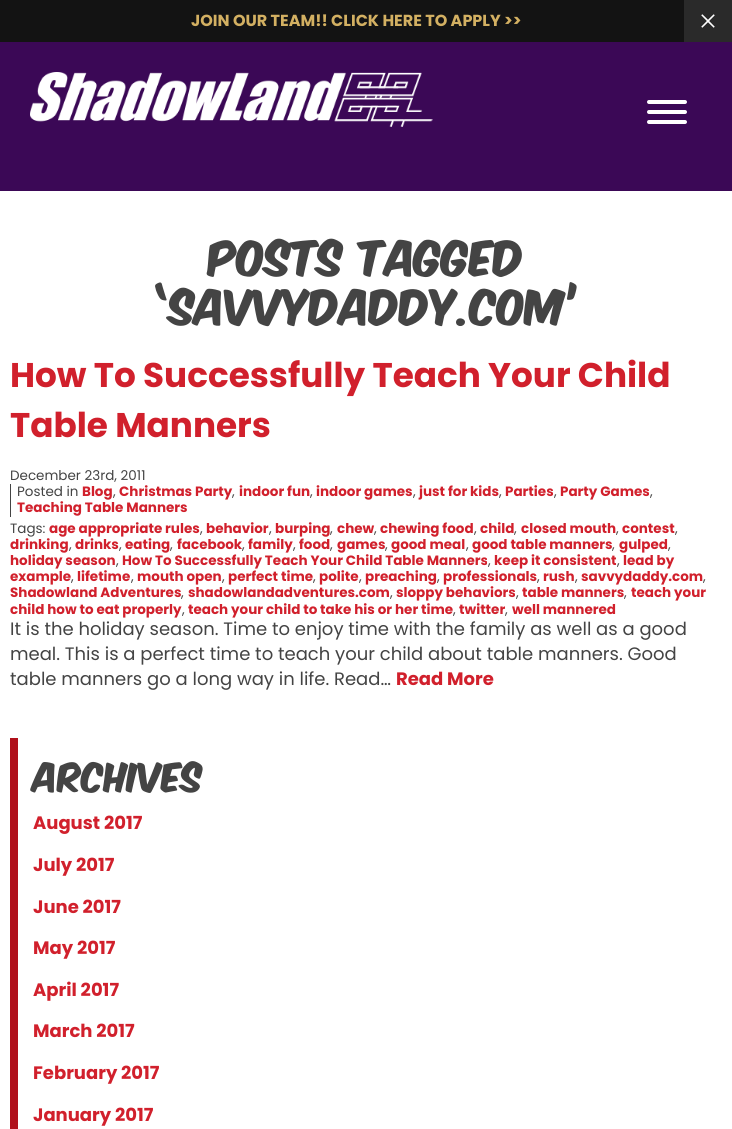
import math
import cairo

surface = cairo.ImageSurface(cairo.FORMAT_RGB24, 732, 1129)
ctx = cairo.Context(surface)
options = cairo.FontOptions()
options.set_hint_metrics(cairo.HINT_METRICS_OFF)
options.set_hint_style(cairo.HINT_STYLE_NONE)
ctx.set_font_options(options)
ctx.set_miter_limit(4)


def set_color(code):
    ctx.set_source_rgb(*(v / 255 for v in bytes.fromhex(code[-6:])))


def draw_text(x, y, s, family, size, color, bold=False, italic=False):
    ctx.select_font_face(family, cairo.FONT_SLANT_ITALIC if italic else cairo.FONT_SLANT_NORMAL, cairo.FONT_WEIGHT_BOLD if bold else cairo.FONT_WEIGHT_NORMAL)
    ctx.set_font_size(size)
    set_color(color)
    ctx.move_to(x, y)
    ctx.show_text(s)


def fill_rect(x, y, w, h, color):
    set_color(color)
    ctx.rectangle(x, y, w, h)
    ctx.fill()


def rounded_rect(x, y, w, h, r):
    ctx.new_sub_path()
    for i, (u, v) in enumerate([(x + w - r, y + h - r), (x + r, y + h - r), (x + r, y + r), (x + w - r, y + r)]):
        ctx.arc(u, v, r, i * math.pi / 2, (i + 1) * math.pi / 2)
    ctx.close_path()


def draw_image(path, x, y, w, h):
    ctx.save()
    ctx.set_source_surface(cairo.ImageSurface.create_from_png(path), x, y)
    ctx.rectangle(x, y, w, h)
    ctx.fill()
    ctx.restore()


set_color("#ffffff")
ctx.paint()
fill_rect(0, 0, 684, 42, "#131313")
draw_text(191, 26, "JOIN OUR TEAM!! CLICK HERE TO APPLY >>", "Poppins", 16, "#d3b062", bold=True)
fill_rect(684, 0, 48, 42, "#2a2a2a")
draw_image("assets/img1.png", 701, 14, 14, 14)
fill_rect(0, 42, 732, 149, "#3b0856")
draw_image("assets/img2.png", 30, 72, 403, 55)
set_color("#ffffff")
rounded_rect(647, 120, 40, 4, 2)
ctx.fill()
rounded_rect(647, 100, 40, 4, 2)
ctx.fill()
rounded_rect(647, 110, 40, 4, 2)
ctx.fill()
draw_text(208, 276, "Posts Tagged", "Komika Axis", 41.4, "#444444")
draw_text(154, 325, "‘savvydaddy.com’", "Komika Axis", 41.4, "#444444")
draw_text(10, 387, "How To Successfully Teach Your Child", "Poppins", 34.25, "#d1202c", bold=True)
draw_text(10, 437, "Table Manners", "Poppins", 34.25, "#d1202c", bold=True)
draw_text(10, 480, "December 23rd, 2011", "Poppins", 13.5, "#444444")
fill_rect(10, 484, 1, 33, "#444444")
draw_text(17, 496, "Posted in", "Poppins", 13.5, "#444444")
draw_text(82, 496, "Blog", "Poppins", 13.5, "#d1202c", bold=True)
draw_text(113, 496, ",", "Poppins", 13.5, "#444444")
draw_text(119, 496, "Christmas Party", "Poppins", 13.5, "#d1202c", bold=True)
draw_text(232, 496, ",", "Poppins", 13.5, "#444444")
draw_text(239, 496, "indoor fun", "Poppins", 13.5, "#d1202c", bold=True)
draw_text(310, 496, ",", "Poppins", 13.5, "#444444")
draw_text(316, 496, "indoor games", "Poppins", 13.5, "#d1202c", bold=True)
draw_text(413, 496, ",", "Poppins", 13.5, "#444444")
draw_text(419, 496, "just for kids", "Poppins", 13.5, "#d1202c", bold=True)
draw_text(499, 496, ",", "Poppins", 13.5, "#444444")
draw_text(505, 496, "Parties", "Poppins", 13.5, "#d1202c", bold=True)
draw_text(554, 496, ",", "Poppins", 13.5, "#444444")
draw_text(560, 496, "Party Games", "Poppins", 13.5, "#d1202c", bold=True)
draw_text(650, 496, ",", "Poppins", 13.5, "#444444")
draw_text(17, 512, "Teaching Table Manners", "Poppins", 13.5, "#d1202c", bold=True)
draw_text(10, 533, "Tags:", "Poppins", 13.5, "#444444")
draw_text(49, 533, "age appropriate rules", "Poppins", 13.5, "#d1202c", bold=True)
draw_text(200, 533, ",", "Poppins", 13.5, "#444444")
draw_text(206, 533, "behavior", "Poppins", 13.5, "#d1202c", bold=True)
draw_text(269, 533, ",", "Poppins", 13.5, "#444444")
draw_text(275, 533, "burping", "Poppins", 13.5, "#d1202c", bold=True)
draw_text(330, 533, ",", "Poppins", 13.5, "#444444")
draw_text(337, 533, "chew", "Poppins", 13.5, "#d1202c", bold=True)
draw_text(374, 533, ",", "Poppins", 13.5, "#444444")
draw_text(380, 533, "chewing food", "Poppins", 13.5, "#d1202c", bold=True)
draw_text(474, 533, ",", "Poppins", 13.5, "#444444")
draw_text(480, 533, "child", "Poppins", 13.5, "#d1202c", bold=True)
draw_text(514, 533, ",", "Poppins", 13.5, "#444444")
draw_text(521, 533, "closed mouth", "Poppins", 13.5, "#d1202c", bold=True)
draw_text(616, 533, ",", "Poppins", 13.5, "#444444")
draw_text(622, 533, "contest", "Poppins", 13.5, "#d1202c", bold=True)
draw_text(675, 533, ",", "Poppins", 13.5, "#444444")
draw_text(10, 549, "drinking", "Poppins", 13.5, "#d1202c", bold=True)
draw_text(69, 549, ",", "Poppins", 13.5, "#444444")
draw_text(75, 549, "drinks", "Poppins", 13.5, "#d1202c", bold=True)
draw_text(119, 549, ",", "Poppins", 13.5, "#444444")
draw_text(125, 549, "eating", "Poppins", 13.5, "#d1202c", bold=True)
draw_text(170, 549, ",", "Poppins", 13.5, "#444444")
draw_text(177, 549, "facebook", "Poppins", 13.5, "#d1202c", bold=True)
draw_text(242, 549, ",", "Poppins", 13.5, "#444444")
draw_text(248, 549, "family", "Poppins", 13.5, "#d1202c", bold=True)
draw_text(293, 549, ",", "Poppins", 13.5, "#444444")
draw_text(299, 549, "food", "Poppins", 13.5, "#d1202c", bold=True)
draw_text(330, 549, ",", "Poppins", 13.5, "#444444")
draw_text(337, 549, "games", "Poppins", 13.5, "#d1202c", bold=True)
draw_text(385, 549, ",", "Poppins", 13.5, "#444444")
draw_text(391, 549, "good meal", "Poppins", 13.5, "#d1202c", bold=True)
draw_text(466, 549, ",", "Poppins", 13.5, "#444444")
draw_text(472, 549, "good table manners", "Poppins", 13.5, "#d1202c", bold=True)
draw_text(612, 549, ",", "Poppins", 13.5, "#444444")
draw_text(619, 549, "gulped", "Poppins", 13.5, "#d1202c", bold=True)
draw_text(668, 549, ",", "Poppins", 13.5, "#444444")
draw_text(10, 565, "holiday season", "Poppins", 13.5, "#d1202c", bold=True)
draw_text(116, 565, ",", "Poppins", 13.5, "#444444")
draw_text(122, 565, "How To Successfully Teach Your Child Table Manners", "Poppins", 13.5, "#d1202c", bold=True)
draw_text(488, 565, ",", "Poppins", 13.5, "#444444")
draw_text(494, 565, "keep it consistent", "Poppins", 13.5, "#d1202c", bold=True)
draw_text(617, 565, ",", "Poppins", 13.5, "#444444")
draw_text(623, 565, "lead by", "Poppins", 13.5, "#d1202c", bold=True)
draw_text(10, 581, "example", "Poppins", 13.5, "#d1202c", bold=True)
draw_text(71, 581, ",", "Poppins", 13.5, "#444444")
draw_text(77, 581, "lifetime", "Poppins", 13.5, "#d1202c", bold=True)
draw_text(131, 581, ",", "Poppins", 13.5, "#444444")
draw_text(137, 581, "mouth open", "Poppins", 13.5, "#d1202c", bold=True)
draw_text(222, 581, ",", "Poppins", 13.5, "#444444")
draw_text(228, 581, "perfect time", "Poppins", 13.5, "#d1202c", bold=True)
draw_text(313, 581, ",", "Poppins", 13.5, "#444444")
draw_text(319, 581, "polite", "Poppins", 13.5, "#d1202c", bold=True)
draw_text(359, 581, ",", "Poppins", 13.5, "#444444")
draw_text(365, 581, "preaching", "Poppins", 13.5, "#d1202c", bold=True)
draw_text(437, 581, ",", "Poppins", 13.5, "#444444")
draw_text(443, 581, "professionals", "Poppins", 13.5, "#d1202c", bold=True)
draw_text(537, 581, ",", "Poppins", 13.5, "#444444")
draw_text(543, 581, "rush", "Poppins", 13.5, "#d1202c", bold=True)
draw_text(575, 581, ",", "Poppins", 13.5, "#444444")
draw_text(581, 581, "savvydaddy.com", "Poppins", 13.5, "#d1202c", bold=True)
draw_text(703, 581, ",", "Poppins", 13.5, "#444444")
draw_text(10, 597, "Shadowland Adventures", "Poppins", 13.5, "#d1202c", bold=True)
draw_text(181, 597, ",", "Poppins", 13.5, "#444444")
draw_text(188, 597, "shadowlandadventures.com", "Poppins", 13.5, "#d1202c", bold=True)
draw_text(390, 597, ",", "Poppins", 13.5, "#444444")
draw_text(396, 597, "sloppy behaviors", "Poppins", 13.5, "#d1202c", bold=True)
draw_text(516, 597, ",", "Poppins", 13.5, "#444444")
draw_text(522, 597, "table manners", "Poppins", 13.5, "#d1202c", bold=True)
draw_text(624, 597, ",", "Poppins", 13.5, "#444444")
draw_text(631, 597, "teach your", "Poppins", 13.5, "#d1202c", bold=True)
draw_text(10, 614, "child how to eat properly", "Poppins", 13.5, "#d1202c", bold=True)
draw_text(182, 614, ",", "Poppins", 13.5, "#444444")
draw_text(188, 614, "teach your child to take his or her time", "Poppins", 13.5, "#d1202c", bold=True)
draw_text(453, 614, ",", "Poppins", 13.5, "#444444")
draw_text(459, 614, "twitter", "Poppins", 13.5, "#d1202c", bold=True)
draw_text(505, 614, ",", "Poppins", 13.5, "#444444")
draw_text(512, 614, "well mannered", "Poppins", 13.5, "#d1202c", bold=True)
draw_text(10, 635, "It is the holiday season. Time to enjoy time with the family as well as a good", "Poppins", 18, "#444444")
draw_text(10, 660, "meal. This is a perfect time to teach your child about table manners. Good", "Poppins", 18, "#444444")
draw_text(10, 685, "table manners go a long way in life. Read…", "Poppins", 18, "#444444")
draw_text(396, 685, "Read More", "Poppins", 18, "#d1202c", bold=True)
fill_rect(10, 738, 8, 391, "#b0101b")
draw_text(33, 792, "Archives", "Komika Axis", 34.25, "#444444")
draw_text(33, 829, "August 2017", "Poppins", 18, "#d1202c", bold=True)
draw_text(33, 871, "July 2017", "Poppins", 18, "#d1202c", bold=True)
draw_text(33, 913, "June 2017", "Poppins", 18, "#d1202c", bold=True)
draw_text(33, 954, "May 2017", "Poppins", 18, "#d1202c", bold=True)
draw_text(33, 996, "April 2017", "Poppins", 18, "#d1202c", bold=True)
draw_text(33, 1037, "March 2017", "Poppins", 18, "#d1202c", bold=True)
draw_text(33, 1079, "February 2017", "Poppins", 18, "#d1202c", bold=True)
draw_text(33, 1121, "January 2017", "Poppins", 18, "#d1202c", bold=True)
surface.write_to_png("output.png")
